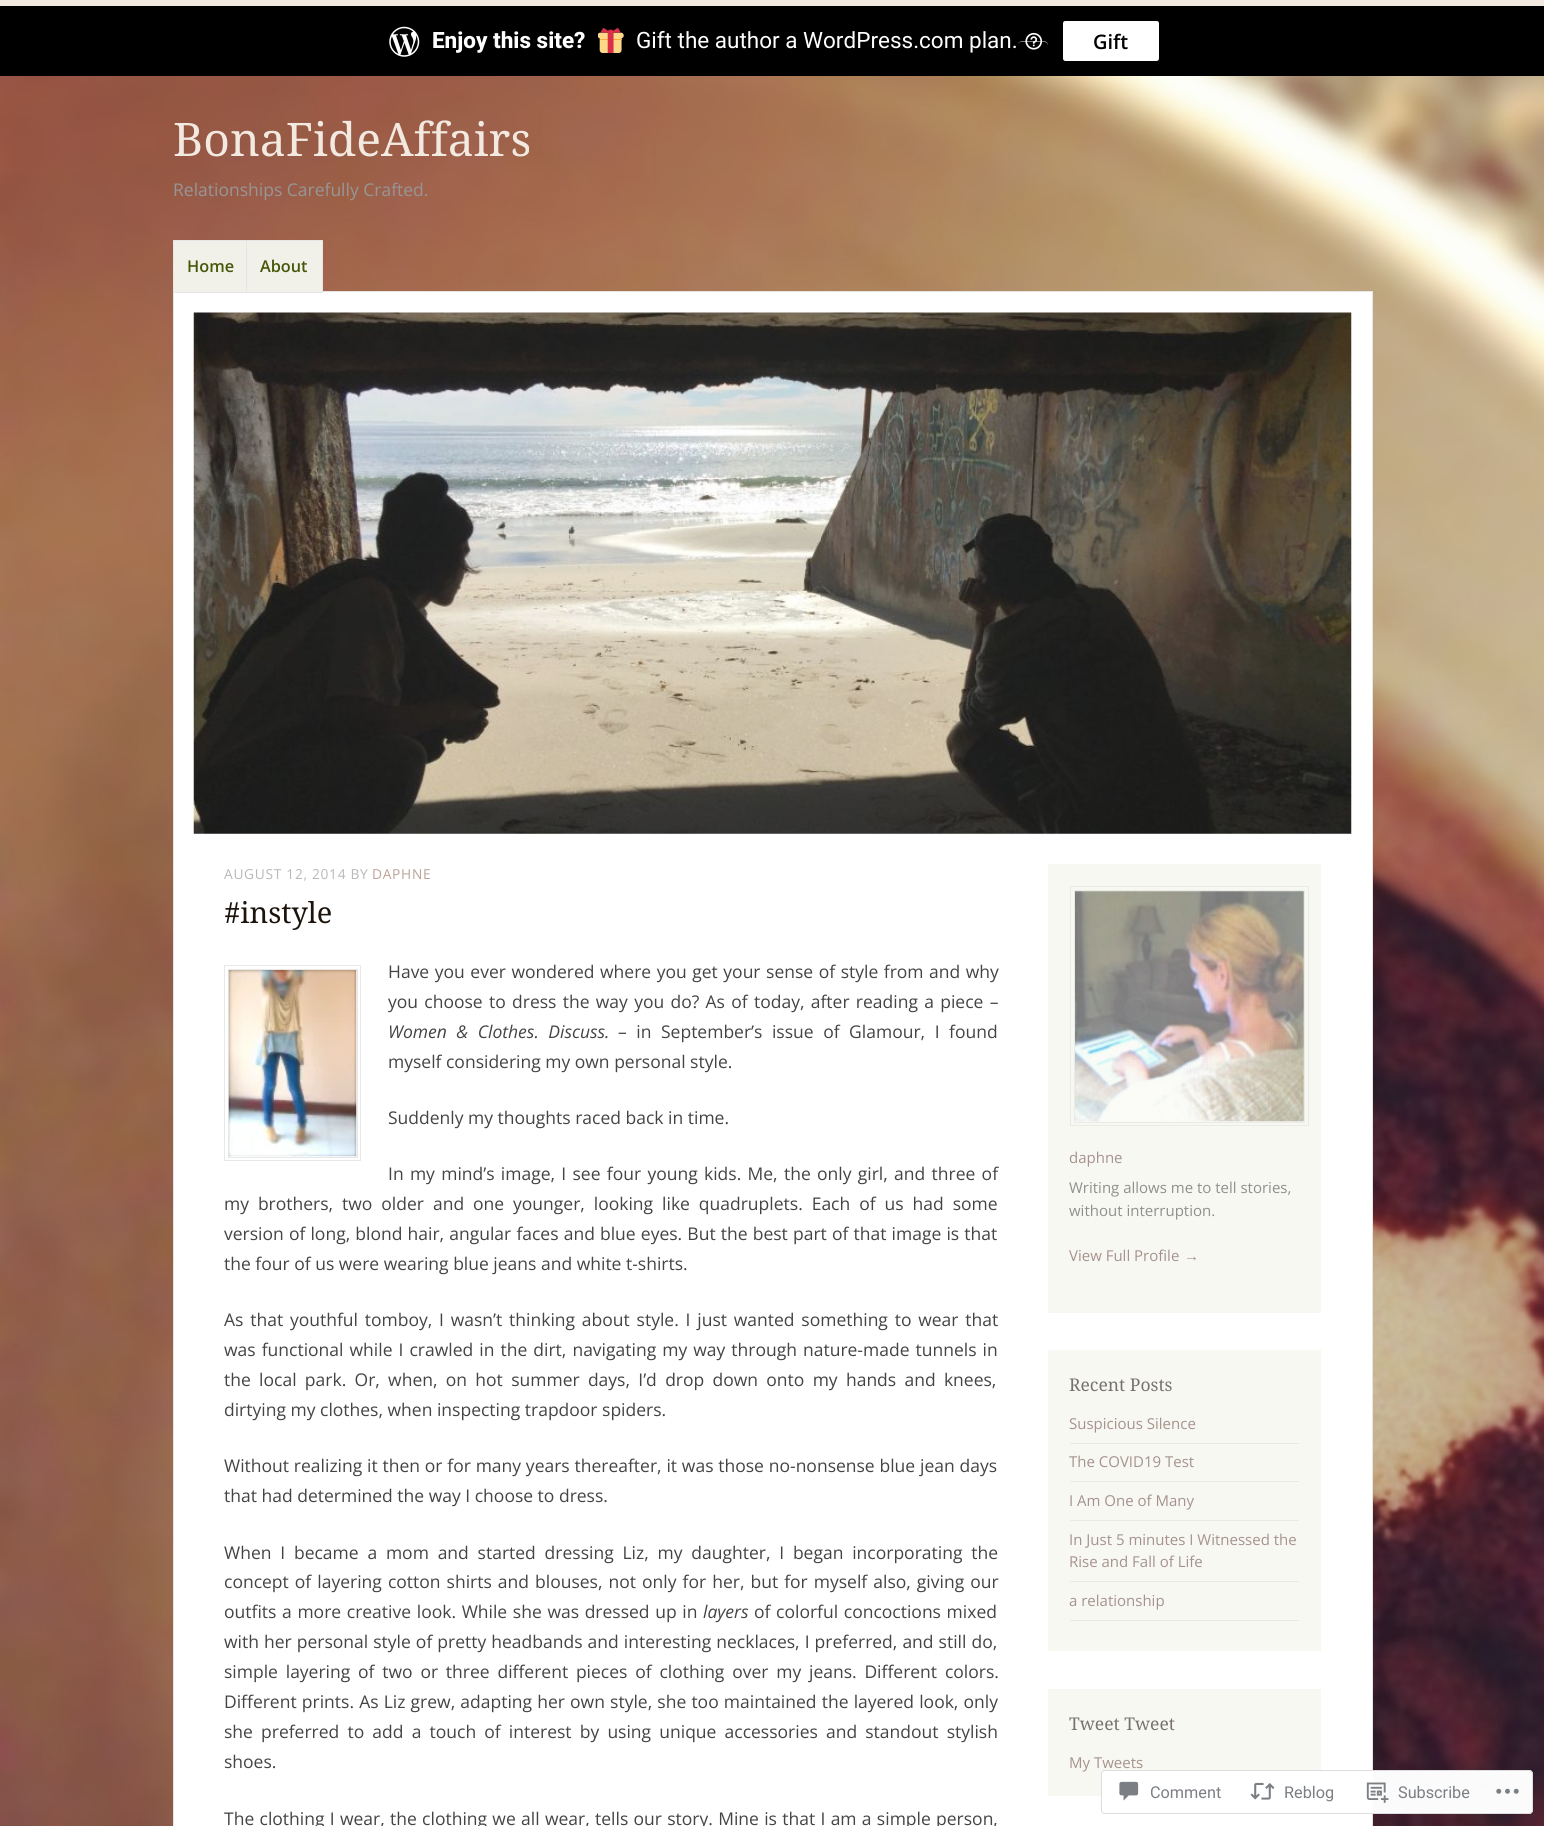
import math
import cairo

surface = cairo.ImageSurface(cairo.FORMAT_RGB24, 1544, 1826)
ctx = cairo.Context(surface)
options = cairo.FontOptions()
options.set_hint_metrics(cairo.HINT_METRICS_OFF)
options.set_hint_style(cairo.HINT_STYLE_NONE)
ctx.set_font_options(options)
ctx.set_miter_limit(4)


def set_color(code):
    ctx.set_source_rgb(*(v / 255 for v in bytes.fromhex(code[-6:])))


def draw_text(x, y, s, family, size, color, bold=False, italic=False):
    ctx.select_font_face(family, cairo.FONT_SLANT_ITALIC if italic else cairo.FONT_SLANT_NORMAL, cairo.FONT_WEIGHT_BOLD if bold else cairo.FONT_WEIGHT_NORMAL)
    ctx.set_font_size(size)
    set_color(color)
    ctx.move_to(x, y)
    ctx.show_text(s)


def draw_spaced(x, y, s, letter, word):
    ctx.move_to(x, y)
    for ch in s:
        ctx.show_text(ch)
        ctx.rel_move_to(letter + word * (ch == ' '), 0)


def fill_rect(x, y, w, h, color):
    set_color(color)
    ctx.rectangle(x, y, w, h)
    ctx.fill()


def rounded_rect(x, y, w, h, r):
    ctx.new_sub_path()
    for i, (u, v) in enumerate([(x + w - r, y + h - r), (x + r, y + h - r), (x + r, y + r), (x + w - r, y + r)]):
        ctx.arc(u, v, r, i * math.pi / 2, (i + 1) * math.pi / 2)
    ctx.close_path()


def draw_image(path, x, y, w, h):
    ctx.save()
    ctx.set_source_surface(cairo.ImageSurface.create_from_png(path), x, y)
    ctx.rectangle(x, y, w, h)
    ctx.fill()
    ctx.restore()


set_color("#ffffff")
ctx.paint()
draw_image("assets/img1.png", 0, 76, 1544, 1750)
fill_rect(0, 0, 1544, 6, "#f2e9e1")
fill_rect(0, 6, 1544, 70, "#000000")
draw_image("assets/img2.png", 389, 26, 31, 31)
draw_text(432, 48, "Enjoy this site?", "Roboto ExtraBold", 22.5, "#ffffff")
draw_image("assets/img3.png", 598, 28, 26, 25)
draw_text(636, 48, "Gift the author a WordPress.com plan.", "Roboto", 22.5, "#ffffff")
set_color("#808080")
ctx.new_path()
ctx.move_to(1021, 42)
ctx.line_to(1044, 42)
ctx.curve_to(1046, 42, 1048, 44, 1048, 46)
ctx.curve_to(1048, 40.5, 1044.5, 41, 1040.5, 41)
ctx.line_to(1025.5, 41)
ctx.curve_to(1021.5, 41, 1018, 40.5, 1018, 46)
ctx.curve_to(1018, 44, 1019, 42, 1021, 42)
ctx.close_path()
ctx.fill()
draw_image("assets/img4.png", 1025, 32, 18, 18)
set_color("#ffffff")
rounded_rect(1063, 21, 96, 40, 2.5)
ctx.fill()
ctx.set_source_rgba(1, 1, 1, 0.5)
ctx.new_path()
ctx.move_to(1065, 22)
ctx.line_to(1156, 22)
ctx.curve_to(1158, 22, 1159, 24, 1159, 25)
ctx.line_to(1159, 24)
ctx.curve_to(1159, 22, 1158, 21, 1156, 21)
ctx.line_to(1066, 21)
ctx.curve_to(1064, 21, 1063, 22, 1063, 23)
ctx.close_path()
ctx.fill()
draw_text(1093, 49, "Gift", "Open Sans SemiBold", 20, "#000000")
draw_text(173, 156, "BonaFideAffairs", "Droid Serif", 46.25, "#f2e9e1")
draw_text(173, 196, "Relationships Carefully Crafted.", "Open Sans", 17.5, "#969696")
set_color("#ffffff")
ctx.rectangle(173.5, 291.5, 1199, 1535)
ctx.fill_preserve()
set_color("#e5e5e5")
ctx.set_line_width(1)
ctx.stroke()
fill_rect(174, 241, 72, 51, "#f1f1e9")
ctx.rectangle(173.5, 240.5, 74, 52)
set_color("#e5e5e5")
ctx.stroke()
draw_text(187, 272, "Home", "Open Sans SemiBold", 16.25, "#455709")
set_color("#f1f1e9")
ctx.rectangle(246.5, 240.5, 76, 52)
ctx.fill_preserve()
set_color("#e5e5e5")
ctx.stroke()
draw_text(260, 272, "About", "Open Sans SemiBold", 16.25, "#455709")
draw_image("assets/img5.png", 193, 312, 1159, 522)
ctx.select_font_face("Open Sans")
ctx.set_font_size(13.75)
set_color("#b8b8b8")
draw_spaced(224, 879, "AUGUST 12, 2014 BY", 0.7, 0)
set_color("#bba398")
draw_spaced(372, 879, "DAPHNE", 0.7, 0)
draw_text(224, 923, "#instyle", "Droid Serif", 29, "#1c140d")
ctx.rectangle(224.5, 965.5, 136, 195)
set_color("#e8e8e8")
ctx.stroke()
ctx.rectangle(228.5, 969.5, 129, 188)
ctx.stroke()
draw_image("assets/img6.png", 228, 970, 129, 187)
ctx.select_font_face("Open Sans")
ctx.set_font_size(17.5)
set_color("#444444")
draw_spaced(388, 978, "Have you ever wondered where you get your sense of style from and why", 0, 1)
draw_spaced(388, 1008, "you choose to dress the way you do? As of today, after reading a piece –", 0, 1.75)
ctx.select_font_face("Open Sans", cairo.FONT_SLANT_ITALIC)
draw_spaced(388, 1038, "Women & Clothes. Discuss.", 0, 5)
ctx.select_font_face("Open Sans")
draw_spaced(618, 1038, "– in September’s issue of Glamour, I found", 0, 5)
draw_text(388, 1068, "myself considering my own personal style.", "Open Sans", 17.5, "#444444")
draw_text(388, 1124, "Suddenly my thoughts raced back in time.", "Open Sans", 17.5, "#444444")
draw_spaced(388, 1180, "In my mind’s image, I see four young kids. Me, the only girl, and three of", 0, 1.75)
draw_spaced(224, 1210, "my brothers, two older and one younger, looking like quadruplets. Each of us had some", 0, 4.4)
draw_spaced(224, 1240, "version of long, blond hair, angular faces and blue eyes. But the best part of that image is that", 0, 0.6)
draw_text(224, 1270, "the four of us were wearing blue jeans and white t-shirts.", "Open Sans", 17.5, "#444444")
draw_spaced(224, 1326, "As that youthful tomboy, I wasn’t thinking about style. I just wanted something to wear that", 0, 2.25)
draw_spaced(224, 1356, "was functional while I crawled in the dirt, navigating my way through nature-made tunnels in", 0, 1.5)
draw_spaced(224, 1386, "the local park. Or, when, on hot summer days, I’d drop down onto my hands and knees,", 0, 3.75)
draw_text(224, 1416, "dirtying my clothes, when inspecting trapdoor spiders.", "Open Sans", 17.5, "#444444")
draw_spaced(224, 1472, "Without realizing it then or for many years thereafter, it was those no-nonsense blue jean days", 0, 0.25)
draw_text(224, 1502, "that had determined the way I choose to dress.", "Open Sans", 17.5, "#444444")
draw_spaced(224, 1559, "When I became a mom and started dressing Liz, my daughter, I began incorporating the", 0, 4.25)
draw_spaced(224, 1588, "concept of layering cotton shirts and blouses, not only for her, but for myself also, giving our", 0, 1.5)
draw_spaced(224, 1618, "outfits a more creative look. While she was dressed up in", 0, 1.1)
draw_text(703, 1618, "layers", "Open Sans", 17.5, "#444444", italic=True)
ctx.select_font_face("Open Sans")
draw_spaced(754, 1618, "of colorful concoctions mixed", 0, 1.1)
draw_spaced(224, 1648, "with her personal style of pretty headbands and interesting necklaces, I preferred, and still do,", 0, 0.5)
draw_spaced(224, 1678, "simple layering of two or three different pieces of clothing over my jeans. Different colors.", 0, 3.25)
draw_spaced(224, 1708, "Different prints. As Liz grew, adapting her own style, she too maintained the layered look, only", 0, 0.6)
draw_spaced(224, 1738, "she preferred to add a touch of interest by using unique accessories and standout stylish", 0, 3.6)
draw_text(224, 1768, "shoes.", "Open Sans", 17.5, "#444444")
draw_spaced(224, 1825, "The clothing I wear, the clothing we all wear, tells our story. Mine is that I am a simple person,", 0, 0.75)
fill_rect(1048, 864, 273, 449, "#f8f8f3")
ctx.rectangle(1070.5, 886.5, 238, 239)
set_color("#ebebe6")
ctx.stroke()
ctx.rectangle(1074.5, 890.5, 230, 232)
ctx.stroke()
draw_image("assets/img7.png", 1075, 891, 229, 231)
draw_text(1069, 1163, "daphne", "Open Sans", 15, "#a6928b")
draw_text(1069, 1193, "Writing allows me to tell stories,", "Open Sans", 15, "#8f8f8f")
draw_text(1069, 1216, "without interruption.", "Open Sans", 15, "#8f8f8f")
draw_text(1069, 1261, "View Full Profile", "Open Sans", 15, "#a6928b")
draw_text(1184, 1261, "→", "Liberation Sans", 15, "#a6928b")
fill_rect(1048, 1350, 273, 301, "#f8f8f3")
draw_text(1069, 1391, "Recent Posts", "Droid Serif", 17.5, "#77726e")
fill_rect(1070, 1443, 229, 1, "#e9e9e5")
draw_text(1069, 1429, "Suspicious Silence", "Open Sans", 15, "#a6928b")
fill_rect(1070, 1481, 229, 1, "#e9e9e5")
draw_text(1069, 1467, "The COVID19 Test", "Open Sans", 15, "#a6928b")
fill_rect(1070, 1520, 229, 1, "#e9e9e5")
draw_text(1069, 1506, "I Am One of Many", "Open Sans", 15, "#a6928b")
fill_rect(1070, 1581, 229, 1, "#e9e9e5")
draw_text(1069, 1545, "In Just 5 minutes I Witnessed the", "Open Sans", 15, "#a6928b")
draw_text(1069, 1567, "Rise and Fall of Life", "Open Sans", 15, "#a6928b")
fill_rect(1070, 1620, 229, 1, "#e9e9e5")
draw_text(1069, 1606, "a relationship", "Open Sans", 15, "#a6928b")
fill_rect(1048, 1689, 273, 107, "#f8f8f3")
draw_text(1069, 1730, "Tweet Tweet", "Droid Serif", 17.5, "#77726e")
draw_text(1069, 1768, "My Tweets", "Open Sans", 15, "#a6928b")
ctx.set_source_rgba(1, 1, 1, 0.98)
rounded_rect(1101, 1770, 432, 44, 4)
ctx.fill()
rounded_rect(1101.5, 1770.5, 431, 43, 3.5)
ctx.set_source_rgba(0.863, 0.863, 0.871, 0.98)
ctx.stroke()
draw_image("assets/img8.png", 1119, 1781, 20, 20)
draw_text(1150, 1798, "Comment", "Roboto", 16.25, "#7b7f84")
draw_image("assets/img9.png", 1250, 1782, 25, 18)
draw_text(1284, 1798, "Reblog", "Roboto", 16.25, "#7b7f84")
draw_image("assets/img10.png", 1366, 1782, 23, 21)
draw_text(1398, 1798, "Subscribe", "Roboto", 16.25, "#7b7f84")
draw_image("assets/img11.png", 1496, 1788, 23, 6)
surface.write_to_png("output.png")
